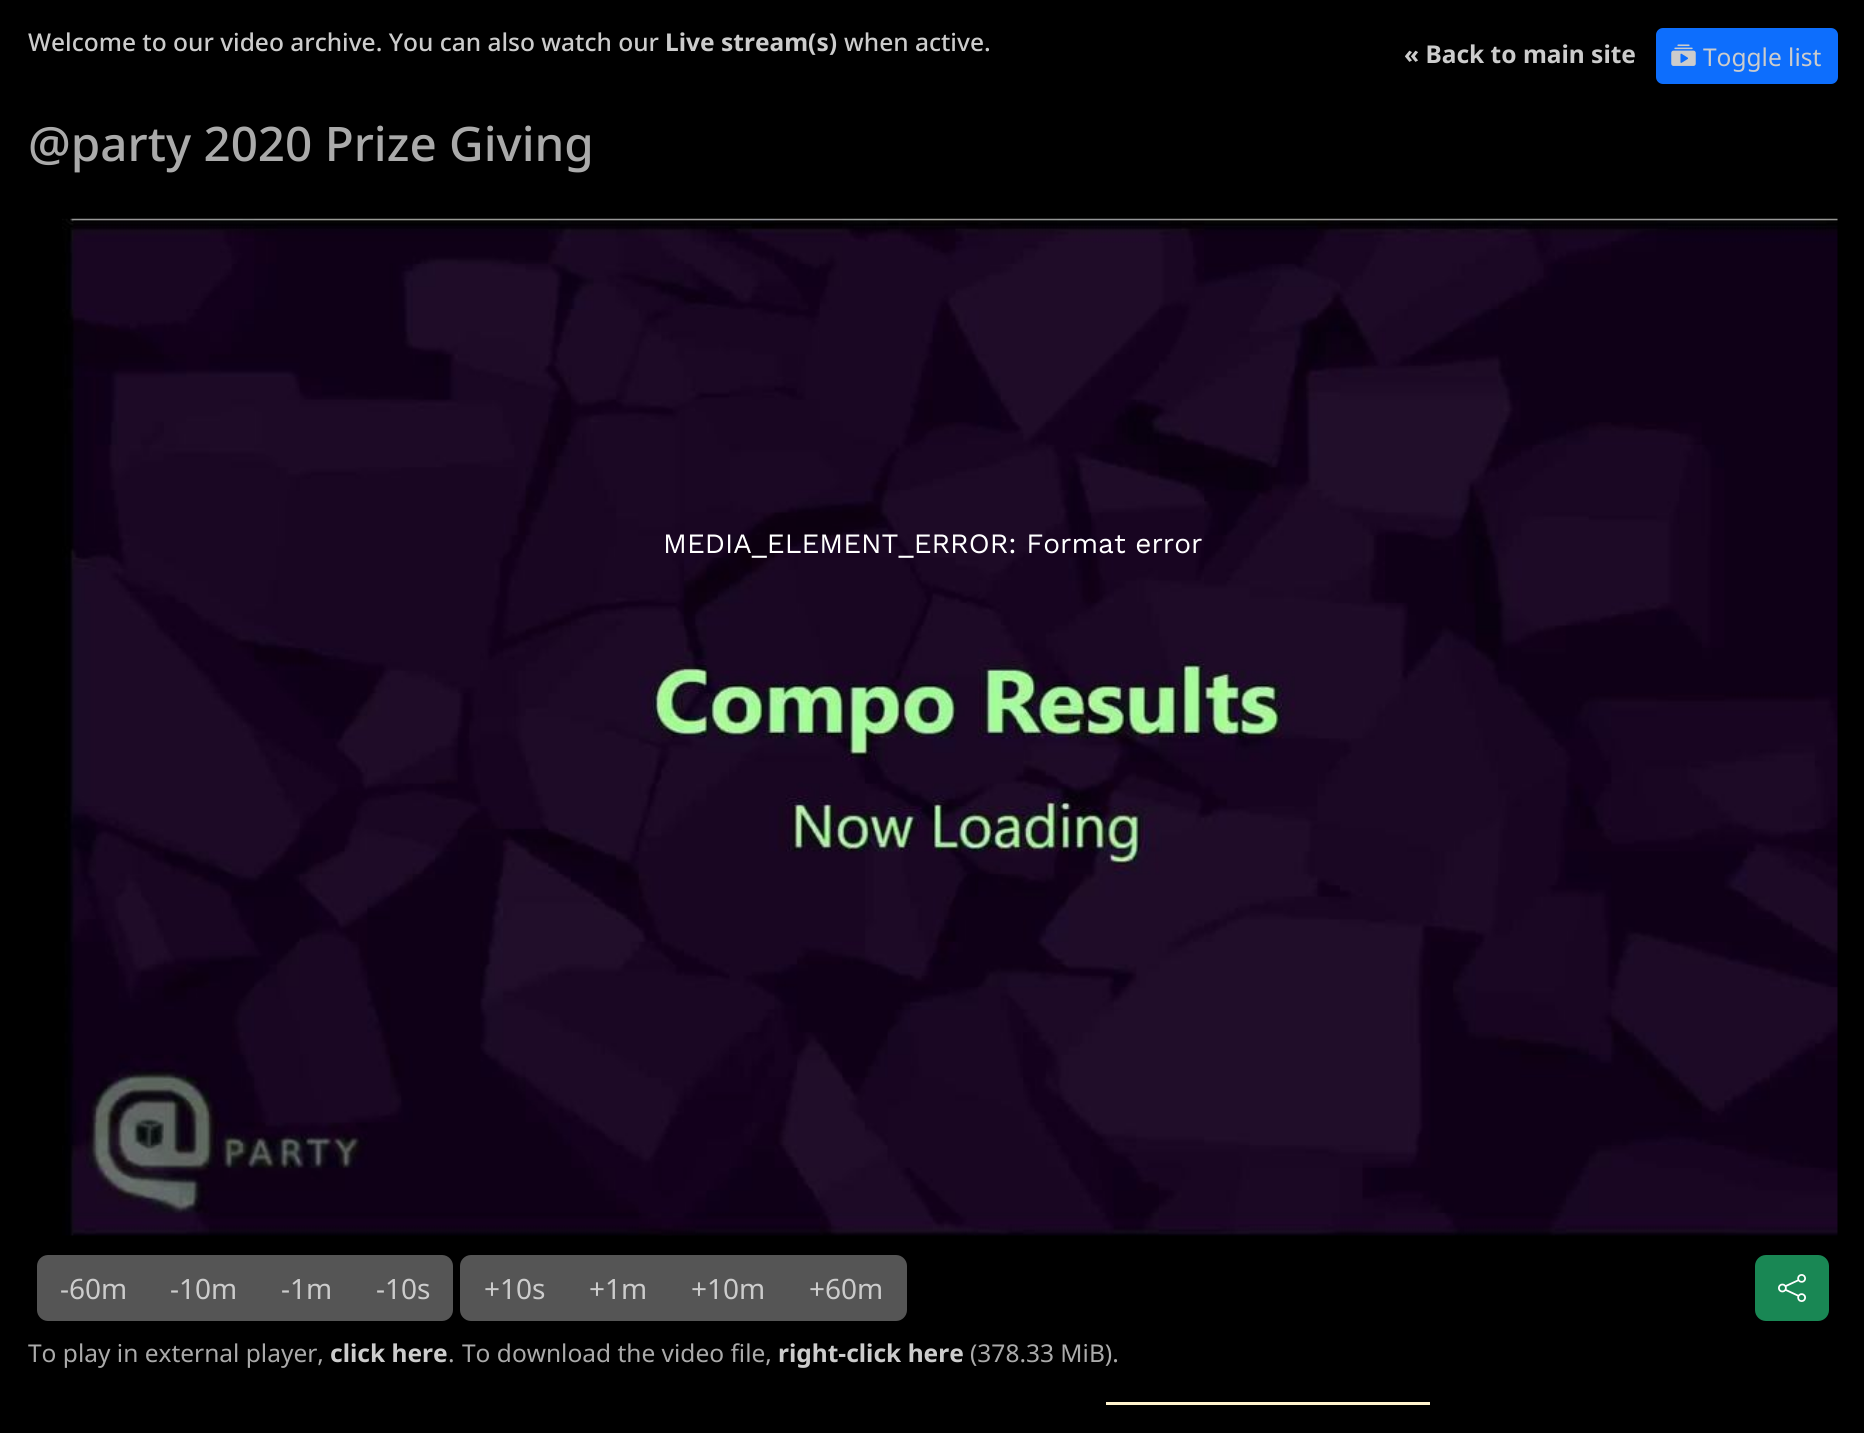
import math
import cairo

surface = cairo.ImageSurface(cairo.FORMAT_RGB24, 1864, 1433)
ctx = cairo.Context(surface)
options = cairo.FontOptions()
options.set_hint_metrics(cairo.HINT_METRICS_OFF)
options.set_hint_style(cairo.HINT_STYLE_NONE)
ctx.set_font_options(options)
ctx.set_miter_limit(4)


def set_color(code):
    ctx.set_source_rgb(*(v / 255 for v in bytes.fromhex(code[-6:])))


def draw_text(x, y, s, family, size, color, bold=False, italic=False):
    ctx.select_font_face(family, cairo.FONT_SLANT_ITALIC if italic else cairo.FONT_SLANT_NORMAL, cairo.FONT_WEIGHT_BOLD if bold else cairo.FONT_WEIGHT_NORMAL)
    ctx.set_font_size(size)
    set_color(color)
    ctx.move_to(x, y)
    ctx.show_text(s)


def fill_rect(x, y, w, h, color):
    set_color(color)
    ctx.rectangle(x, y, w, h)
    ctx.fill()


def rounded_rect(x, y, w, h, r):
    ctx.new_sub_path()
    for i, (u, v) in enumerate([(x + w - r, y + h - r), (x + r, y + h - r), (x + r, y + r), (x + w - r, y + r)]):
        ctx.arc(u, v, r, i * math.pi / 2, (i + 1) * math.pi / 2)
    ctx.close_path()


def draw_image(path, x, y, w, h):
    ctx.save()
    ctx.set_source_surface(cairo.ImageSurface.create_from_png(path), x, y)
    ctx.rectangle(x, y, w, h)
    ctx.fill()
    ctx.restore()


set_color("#000000")
ctx.paint()
draw_text(28, 51, "Welcome to our video archive. You can also watch our", "Noto Sans Medium", 24.5, "#cccccc")
draw_text(665, 51, "Live stream(s)", "Noto Sans", 24.5, "#cccccc", bold=True)
draw_text(844, 51, "when active.", "Noto Sans Medium", 24.5, "#cccccc")
draw_text(1404, 63, "« Back to main site", "Noto Sans", 24.5, "#cccccc", bold=True)
set_color("#0d6efd")
rounded_rect(1657, 29, 180, 54, 6)
ctx.fill_preserve()
ctx.stroke()
draw_image("assets/img1.png", 1671, 44, 25, 22)
draw_text(1703, 66, "Toggle list", "Noto Sans", 24.5, "#cccccc")
draw_text(28, 161, "@party 2020 Prize Giving", "Noto Sans Medium", 47.6, "#aaaaaa")
draw_image("assets/img2.png", 62, 218, 1776, 1018)
draw_text(663, 553, "MEDIA_ELEMENT_ERROR: Format error", "Work Sans", 28, "#ffffff")
set_color("#555555")
ctx.new_path()
ctx.move_to(48, 1255)
ctx.line_to(149, 1255)
ctx.line_to(149, 1321)
ctx.line_to(48, 1321)
ctx.curve_to(42, 1321, 37, 1316, 37, 1310)
ctx.line_to(37, 1266)
ctx.curve_to(37, 1260, 42, 1255, 48, 1255)
ctx.close_path()
ctx.fill()
draw_text(60, 1299, "-60m", "Noto Sans", 28, "#cccccc")
fill_rect(149, 1255, 205, 66, "#555555")
draw_text(170, 1299, "-10m", "Noto Sans", 28, "#cccccc")
draw_text(281, 1299, "-1m", "Noto Sans", 28, "#cccccc")
set_color("#555555")
ctx.new_path()
ctx.move_to(354, 1255)
ctx.line_to(442, 1255)
ctx.curve_to(448, 1255, 453, 1260, 453, 1266)
ctx.line_to(453, 1310)
ctx.curve_to(453, 1316, 448, 1321, 442, 1321)
ctx.line_to(354, 1321)
ctx.close_path()
ctx.fill()
draw_text(376, 1299, "-10s", "Noto Sans", 28, "#cccccc")
set_color("#555555")
ctx.new_path()
ctx.move_to(471, 1255)
ctx.line_to(569, 1255)
ctx.line_to(569, 1321)
ctx.line_to(471, 1321)
ctx.curve_to(465, 1321, 460, 1316, 460, 1310)
ctx.line_to(460, 1266)
ctx.curve_to(460, 1260, 465, 1255, 471, 1255)
ctx.close_path()
ctx.fill()
draw_text(484, 1299, "+10s", "Noto Sans", 28, "#cccccc")
fill_rect(569, 1255, 217, 66, "#555555")
draw_text(589, 1299, "+1m", "Noto Sans", 28, "#cccccc")
draw_text(691, 1299, "+10m", "Noto Sans", 28, "#cccccc")
set_color("#555555")
ctx.new_path()
ctx.move_to(786, 1255)
ctx.line_to(896, 1255)
ctx.curve_to(902, 1255, 907, 1260, 907, 1266)
ctx.line_to(907, 1310)
ctx.curve_to(907, 1316, 902, 1321, 896, 1321)
ctx.line_to(786, 1321)
ctx.close_path()
ctx.fill()
draw_text(809, 1299, "+60m", "Noto Sans", 28, "#cccccc")
set_color("#198754")
rounded_rect(1756, 1256, 72, 64, 10)
ctx.fill_preserve()
ctx.stroke()
draw_image("assets/img3.png", 1778, 1274, 28, 28)
draw_text(28, 1362, "To play in external player,", "Noto Sans", 24.5, "#aaaaaa")
draw_text(330, 1362, "click here", "Noto Sans", 24.5, "#cccccc", bold=True)
draw_text(448, 1362, ".", "Noto Sans", 24.5, "#aaaaaa")
draw_text(462, 1362, "To download the video file,", "Noto Sans", 24.5, "#aaaaaa")
draw_text(778, 1362, "right-click here", "Noto Sans", 24.5, "#cccccc", bold=True)
draw_text(970, 1362, "(378.33 MiB).", "Noto Sans", 24.5, "#aaaaaa")
fill_rect(1106, 1402, 324, 3, "#fff3cd")
surface.write_to_png("output.png")
